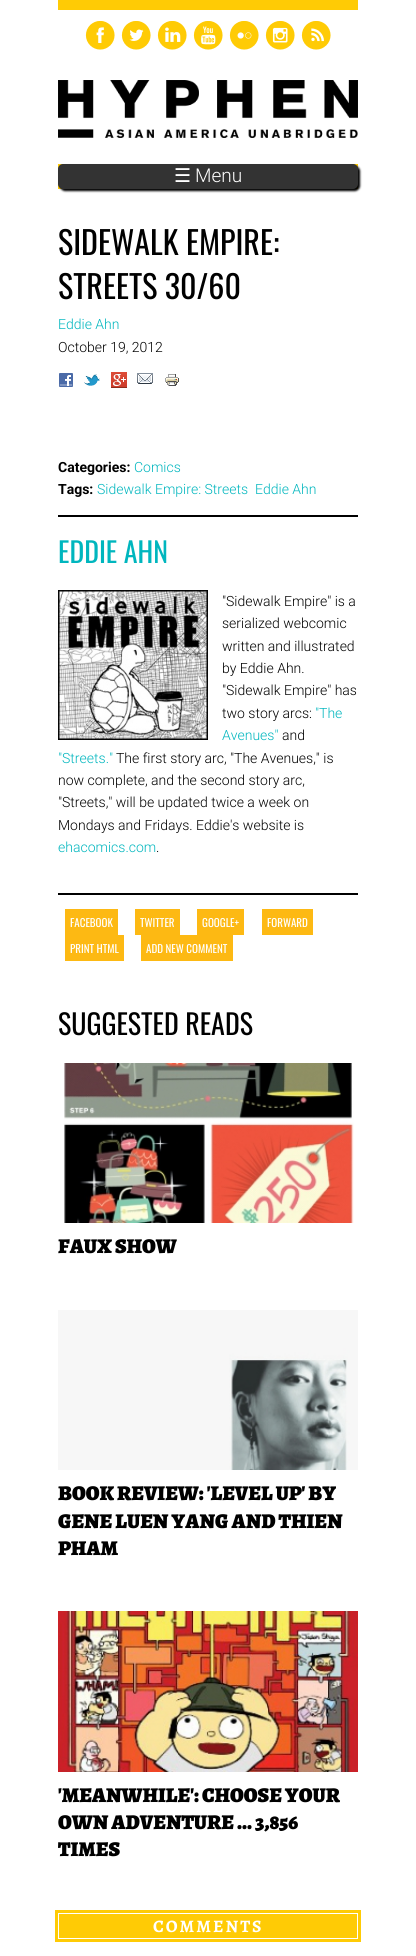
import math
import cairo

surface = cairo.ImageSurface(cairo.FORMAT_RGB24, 416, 1956)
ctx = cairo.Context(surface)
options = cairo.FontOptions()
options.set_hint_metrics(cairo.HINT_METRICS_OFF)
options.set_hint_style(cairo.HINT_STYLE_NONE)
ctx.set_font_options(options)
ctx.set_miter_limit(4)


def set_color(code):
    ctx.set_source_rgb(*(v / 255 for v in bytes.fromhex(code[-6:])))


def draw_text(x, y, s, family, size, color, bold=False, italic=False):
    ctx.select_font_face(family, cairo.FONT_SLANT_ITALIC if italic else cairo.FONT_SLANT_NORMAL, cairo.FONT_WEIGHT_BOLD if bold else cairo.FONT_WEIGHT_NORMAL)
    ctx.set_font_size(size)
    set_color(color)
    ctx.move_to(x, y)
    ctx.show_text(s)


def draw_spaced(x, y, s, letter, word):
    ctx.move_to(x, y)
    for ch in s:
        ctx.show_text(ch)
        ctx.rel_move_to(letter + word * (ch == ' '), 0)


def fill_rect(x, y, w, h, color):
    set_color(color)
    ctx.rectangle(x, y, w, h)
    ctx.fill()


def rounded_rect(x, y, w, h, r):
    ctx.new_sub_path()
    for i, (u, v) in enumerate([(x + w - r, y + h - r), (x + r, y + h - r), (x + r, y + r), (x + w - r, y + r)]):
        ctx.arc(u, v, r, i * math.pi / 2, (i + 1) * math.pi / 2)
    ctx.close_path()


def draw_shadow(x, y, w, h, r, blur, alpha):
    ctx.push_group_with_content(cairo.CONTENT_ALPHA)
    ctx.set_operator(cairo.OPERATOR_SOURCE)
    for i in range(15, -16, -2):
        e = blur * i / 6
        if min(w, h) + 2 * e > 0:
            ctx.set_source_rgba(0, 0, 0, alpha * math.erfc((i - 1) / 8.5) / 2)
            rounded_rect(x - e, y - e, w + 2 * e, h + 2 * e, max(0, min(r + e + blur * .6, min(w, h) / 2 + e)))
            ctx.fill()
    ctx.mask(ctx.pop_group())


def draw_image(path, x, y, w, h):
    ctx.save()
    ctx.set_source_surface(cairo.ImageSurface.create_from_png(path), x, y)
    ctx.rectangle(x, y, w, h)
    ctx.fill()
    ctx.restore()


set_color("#ffffff")
ctx.paint()
fill_rect(58, 0, 300, 10, "#ffcb05")
draw_image("assets/img1.png", 85, 21, 30, 29)
draw_image("assets/img2.png", 121, 21, 30, 29)
draw_image("assets/img3.png", 157, 21, 30, 29)
draw_image("assets/img4.png", 193, 21, 30, 29)
draw_image("assets/img5.png", 229, 21, 30, 29)
draw_image("assets/img6.png", 265, 21, 30, 29)
draw_image("assets/img7.png", 301, 21, 30, 29)
draw_image("assets/img8.png", 58, 80, 300, 58)
fill_rect(58, 164, 300, 25, "#ffcb05")
set_color("#000000")
draw_shadow(60, 166, 300, 25, 5, 1, 1)
set_color("#333333")
rounded_rect(58, 164, 300, 25, 5)
ctx.fill()
draw_text(174, 182, "☰", "DejaVu Sans", 19, "#ffffff")
draw_text(195, 182, "Menu", "Roboto Light", 19, "#ffffff")
draw_text(58, 255, "SIDEWALK EMPIRE:", "Oswald", 32, "#000000")
draw_text(58, 299, "STREETS 30/60", "Oswald", 32, "#000000")
draw_text(58, 329, "Eddie Ahn", "Roboto Light", 14, "#00b6be")
draw_text(58, 352, "October 19, 2012", "Roboto Light", 14, "#000000")
draw_image("assets/img9.png", 59, 373, 14, 14)
draw_image("assets/img10.png", 84, 374, 16, 12)
draw_image("assets/img11.png", 111, 372, 16, 16)
draw_image("assets/img12.png", 137, 373, 16, 11)
draw_image("assets/img13.png", 165, 374, 14, 12)
draw_text(58, 472, "Categories:", "Roboto", 14, "#000000", bold=True)
draw_text(134, 472, "Comics", "Roboto Light", 14, "#00b6be")
draw_text(58, 494, "Tags:", "Roboto", 14, "#000000", bold=True)
draw_text(97, 494, "Sidewalk Empire: Streets", "Roboto Light", 14, "#00b6be")
draw_text(255, 494, "Eddie Ahn", "Roboto Light", 14, "#00b6be")
fill_rect(58, 515, 300, 2, "#000000")
fill_rect(58, 893, 300, 2, "#000000")
draw_text(58, 563, "EDDIE AHN", "Oswald", 28, "#00b6be")
draw_image("assets/img14.png", 58, 590, 150, 150)
draw_text(222, 606, "\"Sidewalk Empire\" is a", "Roboto Light", 14, "#000000")
draw_text(222, 628, "serialized webcomic", "Roboto Light", 14, "#000000")
draw_text(222, 651, "written and illustrated", "Roboto Light", 14, "#000000")
draw_text(222, 673, "by Eddie Ahn.", "Roboto Light", 14, "#000000")
draw_text(222, 695, "\"Sidewalk Empire\" has", "Roboto Light", 14, "#000000")
draw_text(222, 718, "two story arcs:", "Roboto Light", 14, "#000000")
draw_text(315, 718, "\"The", "Roboto Light", 14, "#00b6be")
draw_text(222, 740, "Avenues\"", "Roboto Light", 14, "#00b6be")
draw_text(282, 740, "and", "Roboto Light", 14, "#000000")
draw_text(58, 763, "\"Streets.\"", "Roboto Light", 14, "#00b6be")
draw_text(116, 763, "The first story arc, \"The Avenues,\" is", "Roboto Light", 14, "#000000")
draw_text(58, 785, "now complete, and the second story arc,", "Roboto Light", 14, "#000000")
draw_text(58, 807, "\"Streets,\" will be updated twice a week on", "Roboto Light", 14, "#000000")
draw_text(58, 830, "Mondays and Fridays. Eddie's website is", "Roboto Light", 14, "#000000")
draw_text(58, 852, "ehacomics.com", "Roboto Light", 14, "#00b6be")
draw_text(156, 852, ".", "Roboto Light", 14, "#000000")
fill_rect(65, 909, 53, 26, "#fdb913")
draw_text(70, 927, "FACEBOOK", "Oswald", 11, "#ffffff")
fill_rect(135, 909, 45, 26, "#fdb913")
draw_text(140, 927, "TWITTER", "Oswald", 11, "#ffffff")
fill_rect(197, 909, 47, 26, "#fdb913")
draw_text(202, 927, "GOOGLE+", "Oswald", 11, "#ffffff")
fill_rect(262, 909, 51, 26, "#fdb913")
draw_text(267, 927, "FORWARD", "Oswald", 11, "#ffffff")
fill_rect(65, 935, 59, 26, "#fdb913")
draw_text(70, 953, "PRINT HTML", "Oswald", 11, "#ffffff")
fill_rect(141, 935, 92, 26, "#fdb913")
draw_text(146, 953, "ADD NEW COMMENT", "Oswald", 11, "#ffffff")
draw_text(58, 1035, "SUGGESTED READS", "Oswald", 28, "#000000")
draw_image("assets/img15.png", 64, 1063, 290, 160)
draw_text(58, 1253, "FAUX SHOW", "Alegreya Black", 21, "#000000")
draw_image("assets/img16.png", 58, 1310, 300, 160)
draw_text(58, 1500, "BOOK REVIEW: 'LEVEL UP' BY", "Alegreya Black", 21, "#000000")
draw_text(58, 1528, "GENE LUEN YANG AND THIEN", "Alegreya Black", 21, "#000000")
draw_text(58, 1555, "PHAM", "Alegreya Black", 21, "#000000")
draw_image("assets/img17.png", 58, 1611, 300, 161)
draw_text(58, 1802, "'MEANWHILE': CHOOSE YOUR", "Alegreya Black", 21, "#000000")
draw_text(58, 1829, "OWN ADVENTURE ... 3,856", "Alegreya Black", 21, "#000000")
draw_text(58, 1856, "TIMES", "Alegreya Black", 21, "#000000")
fill_rect(59, 1914, 298, 24, "#ffcb05")
ctx.rectangle(56.5, 1911.5, 303, 29)
ctx.set_line_width(3)
ctx.stroke()
ctx.select_font_face("Alegreya", cairo.FONT_SLANT_NORMAL, cairo.FONT_WEIGHT_BOLD)
ctx.set_font_size(17.5)
set_color("#ffffff")
draw_spaced(153, 1932, "COMMENTS", 2, 0)
surface.write_to_png("output.png")
